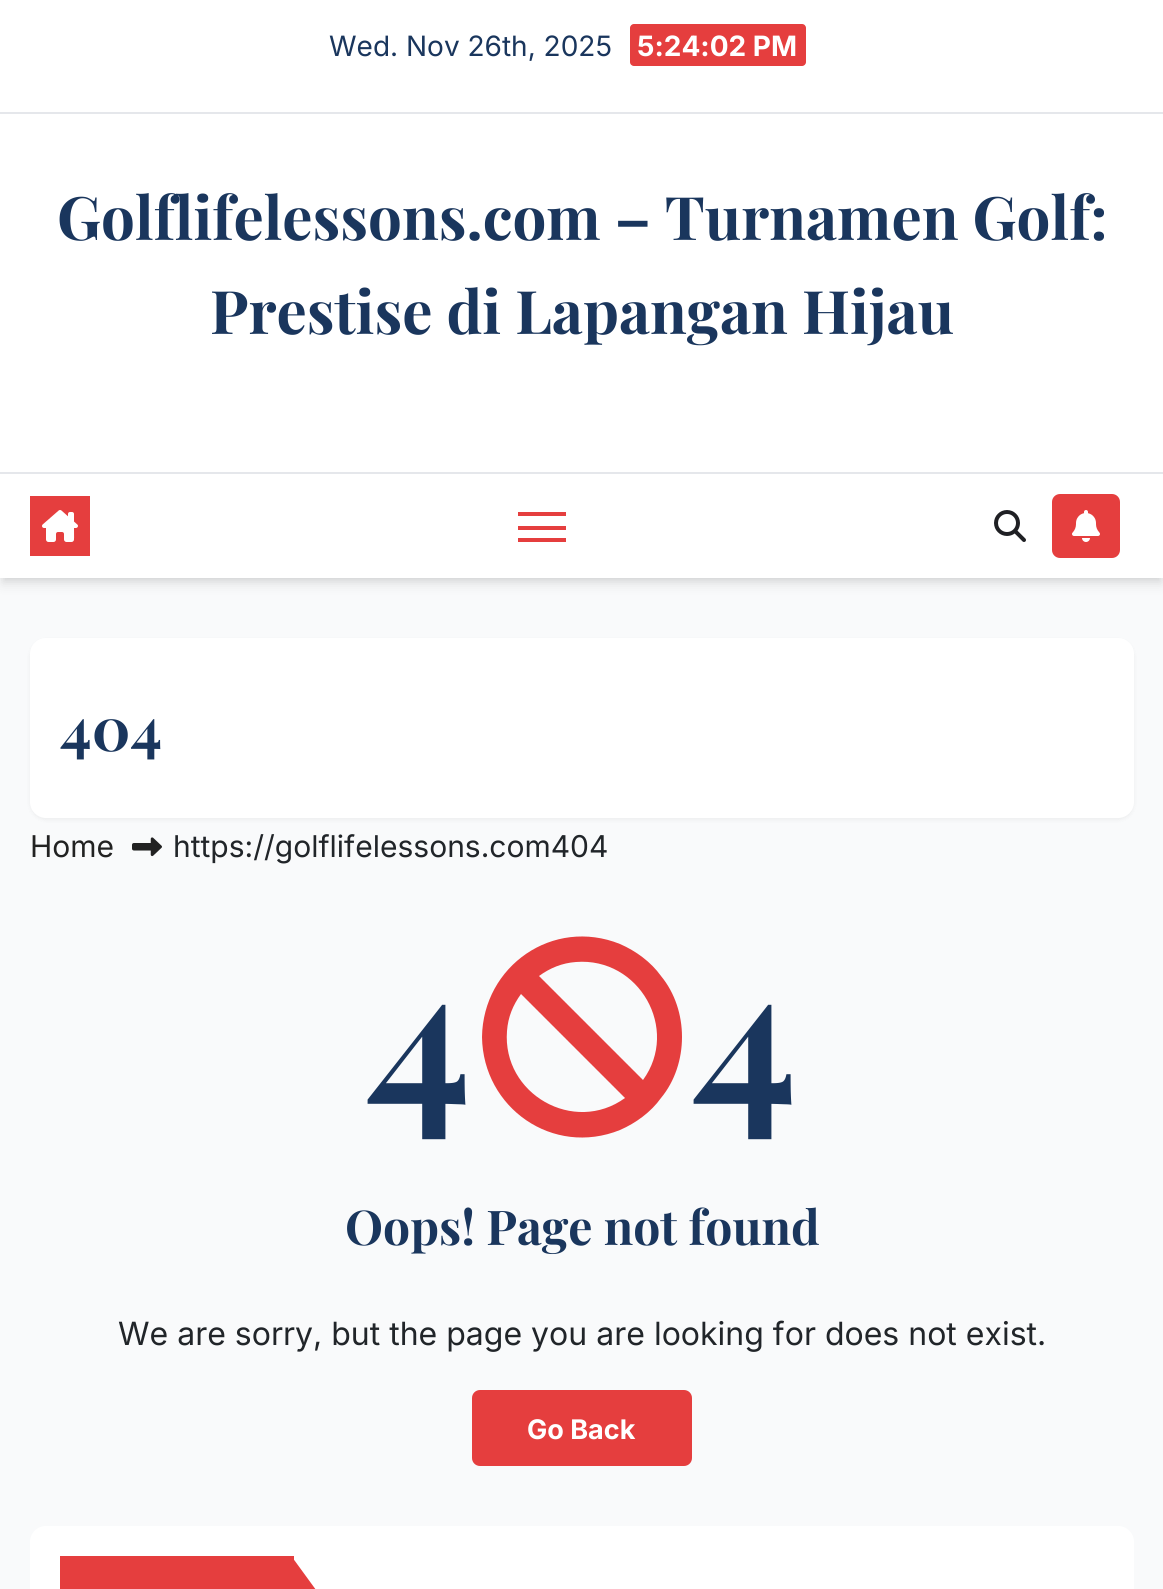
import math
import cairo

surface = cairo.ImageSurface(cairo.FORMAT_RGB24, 1163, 1589)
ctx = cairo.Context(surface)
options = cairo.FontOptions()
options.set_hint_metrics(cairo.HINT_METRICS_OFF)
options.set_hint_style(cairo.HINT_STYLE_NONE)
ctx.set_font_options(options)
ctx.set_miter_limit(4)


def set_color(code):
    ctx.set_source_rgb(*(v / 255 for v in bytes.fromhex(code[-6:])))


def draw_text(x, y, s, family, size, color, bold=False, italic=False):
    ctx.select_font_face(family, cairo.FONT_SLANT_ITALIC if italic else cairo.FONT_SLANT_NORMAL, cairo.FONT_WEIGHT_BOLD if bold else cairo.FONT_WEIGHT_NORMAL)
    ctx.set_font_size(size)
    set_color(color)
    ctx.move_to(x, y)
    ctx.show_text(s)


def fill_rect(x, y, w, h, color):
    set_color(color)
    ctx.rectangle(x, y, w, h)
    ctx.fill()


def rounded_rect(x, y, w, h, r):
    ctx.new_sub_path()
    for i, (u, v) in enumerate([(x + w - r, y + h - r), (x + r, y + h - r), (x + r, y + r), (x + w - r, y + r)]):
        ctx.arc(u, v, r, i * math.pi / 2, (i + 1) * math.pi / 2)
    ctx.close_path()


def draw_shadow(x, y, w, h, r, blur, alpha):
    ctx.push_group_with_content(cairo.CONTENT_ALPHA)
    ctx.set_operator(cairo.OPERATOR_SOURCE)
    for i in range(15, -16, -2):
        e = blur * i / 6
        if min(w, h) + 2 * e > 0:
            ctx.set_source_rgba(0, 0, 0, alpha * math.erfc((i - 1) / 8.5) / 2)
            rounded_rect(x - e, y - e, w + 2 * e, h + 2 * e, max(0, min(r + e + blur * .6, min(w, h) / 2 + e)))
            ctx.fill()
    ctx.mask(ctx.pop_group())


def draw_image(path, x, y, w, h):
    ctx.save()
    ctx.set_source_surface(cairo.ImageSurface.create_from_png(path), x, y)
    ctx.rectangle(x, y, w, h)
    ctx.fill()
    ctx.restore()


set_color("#f9fafb")
ctx.paint()
set_color("#000000")
draw_shadow(4, 8, 1156, 570, 0, 4, 0.1)
draw_shadow(2, 10, 1160, 574, 0, 6, 0.1)
fill_rect(0, 0, 1163, 112, "#ffffff")
draw_text(329, 56, "Wed. Nov 26th, 2025", "Inter", 28, "#1a365d")
set_color("#e53e3e")
rounded_rect(630, 24, 176, 42, 4)
ctx.fill()
draw_text(637, 56, "5:24:02 PM", "Inter", 28, "#ffffff", bold=True)
fill_rect(0, 114, 1163, 358, "#ffffff")
fill_rect(0, 112, 1163, 2, "#e5e7eb")
fill_rect(0, 472, 1163, 2, "#e5e7eb")
draw_text(57, 240, "Golflifelessons.com – Turnamen Golf:", "Playfair Display", 60, "#1a365d", bold=True)
draw_text(210, 334, "Prestise di Lapangan Hijau", "Playfair Display", 60, "#1a365d", bold=True)
fill_rect(0, 474, 1163, 104, "#ffffff")
fill_rect(30, 496, 60, 60, "#e53e3e")
draw_image("assets/img1.png", 42, 510, 36, 32)
fill_rect(518, 512, 48, 4, "#e53e3e")
fill_rect(518, 526, 48, 4, "#e53e3e")
fill_rect(518, 538, 48, 4, "#e53e3e")
draw_image("assets/img2.png", 994, 510, 32, 32)
rounded_rect(1052, 494, 68, 64, 8)
ctx.fill()
draw_image("assets/img3.png", 1072, 510, 28, 32)
set_color("#000000")
draw_shadow(30, 640, 1104, 180, 16, 2, 0.05)
set_color("#ffffff")
rounded_rect(30, 638, 1104, 180, 16)
ctx.fill()
draw_text(60, 751, "404", "Playfair Display", 60, "#1a365d", bold=True)
draw_text(30, 857, "Home", "Inter", 30, "#222222")
draw_image("assets/img4.png", 132, 837, 30, 20)
draw_text(173, 857, "https://golflifelessons.com404", "Inter", 30, "#212529")
draw_text(366, 1111, "4", "Playfair Display", 200, "#1a365d", bold=True)
set_color("#e53e3e")
ctx.new_path()
ctx.move_to(625, 1098)
ctx.line_to(521, 994)
ctx.curve_to(513, 1005, 508, 1017, 507, 1031)
ctx.curve_to(502, 1094, 574, 1135, 625, 1098)
ctx.close_path()
ctx.move_to(643, 1080)
ctx.curve_to(680, 1029, 639, 957, 576, 962)
ctx.curve_to(562, 963, 550, 968, 539, 976)
ctx.close_path()
ctx.move_to(482, 1037)
ctx.curve_to(483, 966, 553, 917, 620, 944)
ctx.curve_to(636, 951, 651, 962, 661, 976)
ctx.curve_to(675, 993, 682, 1015, 682, 1037)
ctx.curve_to(682, 1059, 675, 1081, 661, 1098)
ctx.curve_to(651, 1112, 636, 1123, 620, 1130)
ctx.curve_to(553, 1157, 483, 1108, 482, 1037)
ctx.close_path()
ctx.fill()
draw_text(692, 1111, "4", "Playfair Display", 200, "#1a365d", bold=True)
draw_text(345, 1245, "Oops! Page not found", "Playfair Display", 48, "#1a365d", bold=True)
draw_text(118, 1345, "We are sorry, but the page you are looking for does not exist.", "Inter", 32, "#212529")
set_color("#e53e3e")
rounded_rect(474, 1392, 216, 72, 6)
ctx.fill_preserve()
ctx.set_line_width(4)
ctx.stroke()
draw_text(527, 1439, "Go Back", "Inter", 27, "#ffffff", bold=True)
rounded_rect(30, 1526, 1104, 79, 16)
ctx.fill()
fill_rect(60, 1556, 234, 33, "#e53e3e")
ctx.new_path()
ctx.move_to(351, 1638)
ctx.line_to(292, 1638)
ctx.line_to(292, 1557)
ctx.close_path()
ctx.fill()
surface.write_to_png("output.png")
